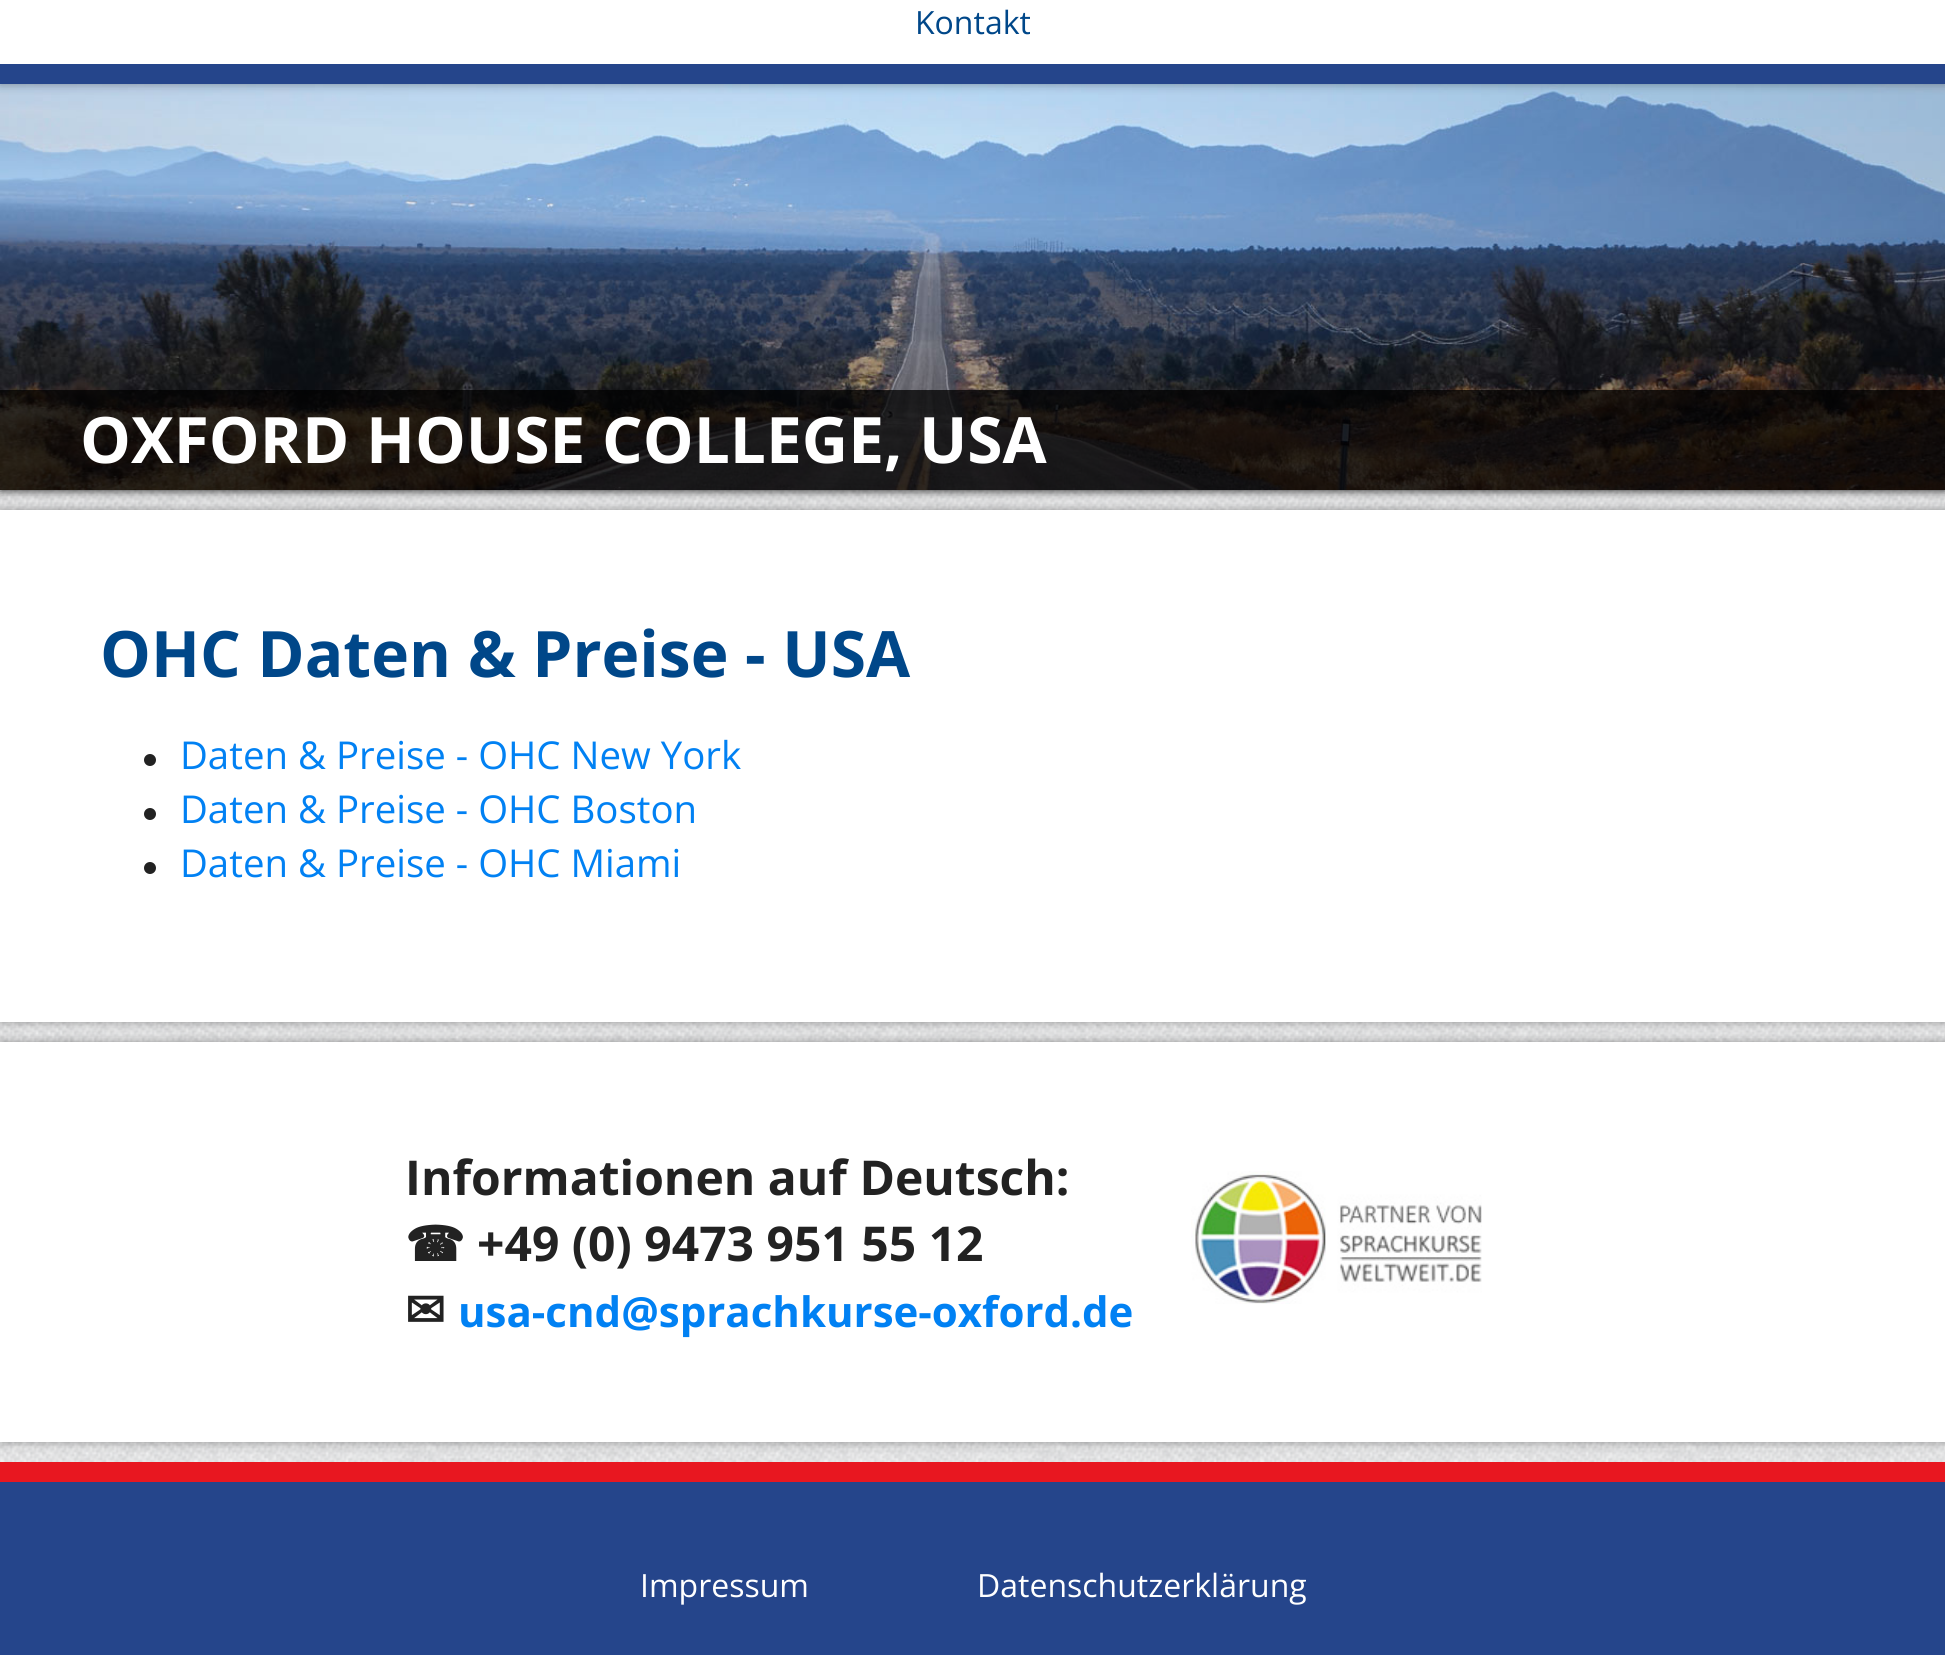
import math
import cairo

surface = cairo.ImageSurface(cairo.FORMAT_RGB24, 1945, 1655)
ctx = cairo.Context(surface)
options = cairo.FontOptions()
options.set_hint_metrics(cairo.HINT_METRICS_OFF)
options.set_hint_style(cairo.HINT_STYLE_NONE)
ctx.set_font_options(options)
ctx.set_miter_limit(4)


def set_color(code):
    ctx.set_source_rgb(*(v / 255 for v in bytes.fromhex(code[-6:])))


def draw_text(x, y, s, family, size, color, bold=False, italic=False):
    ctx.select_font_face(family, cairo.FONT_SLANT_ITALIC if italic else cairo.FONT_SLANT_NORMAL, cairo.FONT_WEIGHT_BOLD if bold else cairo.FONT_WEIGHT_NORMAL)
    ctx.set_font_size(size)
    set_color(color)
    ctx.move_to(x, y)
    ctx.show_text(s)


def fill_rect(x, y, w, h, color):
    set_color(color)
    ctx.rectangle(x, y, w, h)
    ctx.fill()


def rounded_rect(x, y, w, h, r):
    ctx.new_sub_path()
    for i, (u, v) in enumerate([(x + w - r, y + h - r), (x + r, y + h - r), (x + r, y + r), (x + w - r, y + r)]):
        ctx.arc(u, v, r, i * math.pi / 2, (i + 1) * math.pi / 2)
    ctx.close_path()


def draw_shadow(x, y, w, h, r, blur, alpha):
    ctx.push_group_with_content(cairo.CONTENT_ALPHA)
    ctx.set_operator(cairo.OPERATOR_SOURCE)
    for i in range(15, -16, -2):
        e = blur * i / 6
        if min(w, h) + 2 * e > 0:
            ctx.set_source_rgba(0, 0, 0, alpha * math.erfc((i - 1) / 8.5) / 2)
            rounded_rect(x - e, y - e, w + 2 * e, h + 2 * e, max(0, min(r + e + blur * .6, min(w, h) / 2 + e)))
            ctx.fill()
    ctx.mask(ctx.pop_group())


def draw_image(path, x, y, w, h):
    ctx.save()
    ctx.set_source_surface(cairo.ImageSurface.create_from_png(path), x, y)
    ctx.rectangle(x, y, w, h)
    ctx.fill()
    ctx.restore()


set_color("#ffffff")
ctx.paint()
draw_image("assets/img2.png", 0, 490, 1945, 972)
set_color("#000000")
draw_shadow(0, 84, 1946, 406, 0, 5, 0.9)
draw_image("assets/img1.png", 0, 84, 1945, 406)
draw_shadow(0, -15, 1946, 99, 0, 5, 0.35)
fill_rect(0, 0, 1945, 64, "#ffffff")
fill_rect(0, 64, 1945, 20, "#25458b")
draw_text(915, 34, "Kontakt", "Open Sans", 32, "#004789")
ctx.set_source_rgba(0, 0, 0, 0.75)
ctx.rectangle(0, 390, 1945, 100)
ctx.fill()
draw_text(80, 463, "OXFORD HOUSE COLLEGE, USA", "Open Sans", 64, "#ffffff", bold=True)
set_color("#000000")
draw_shadow(0, 510, 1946, 512, 0, 5, 0.35)
fill_rect(0, 510, 1945, 512, "#ffffff")
draw_text(100, 677, "OHC Daten & Preise - USA", "Open Sans", 64, "#004789", bold=True)
set_color("#222222")
ctx.new_path()
ctx.arc(150, 760, 6, 0, 2 * math.pi)
ctx.fill()
draw_text(180, 769, "Daten & Preise - OHC New York", "Open Sans", 38.4, "#0181f3")
set_color("#222222")
ctx.new_path()
ctx.arc(150, 814, 6, 0, 2 * math.pi)
ctx.fill()
draw_text(180, 823, "Daten & Preise - OHC Boston", "Open Sans", 38.4, "#0181f3")
set_color("#222222")
ctx.new_path()
ctx.arc(150, 868, 6, 0, 2 * math.pi)
ctx.fill()
draw_text(180, 877, "Daten & Preise - OHC Miami", "Open Sans", 38.4, "#0181f3")
set_color("#000000")
draw_shadow(0, 1042, 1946, 400, 0, 5, 0.35)
fill_rect(0, 1042, 1945, 400, "#ffffff")
draw_text(405, 1195, "Informationen auf Deutsch:", "Open Sans", 48, "#222222", bold=True)
draw_text(405, 1261, "☎", "DejaVu Sans", 48, "#222222", bold=True)
draw_text(477, 1261, "+49 (0) 9473 951 55 12", "Open Sans", 48, "#222222", bold=True)
draw_text(405, 1327, "✉", "DejaVu Sans", 48, "#222222", bold=True)
draw_text(458, 1327, "usa-cnd@sprachkurse-oxford.de", "Open Sans", 42, "#0181f3", bold=True)
draw_image("assets/img3.png", 1191, 1171, 291, 133)
fill_rect(0, 1482, 1945, 173, "#25458b")
fill_rect(0, 1462, 1945, 20, "#e81720")
draw_text(640, 1597, "Impressum", "Open Sans", 32, "#ffffff")
draw_text(977, 1597, "Datenschutzerklärung", "Open Sans", 32, "#ffffff")
surface.write_to_png("output.png")
